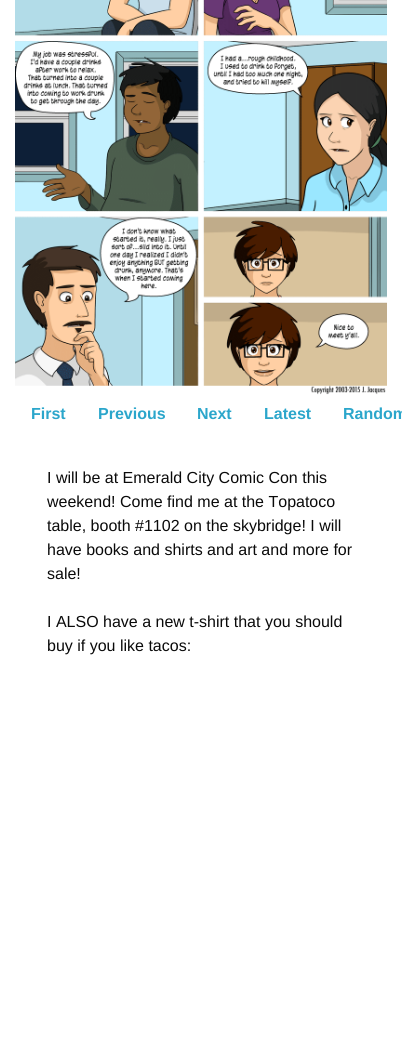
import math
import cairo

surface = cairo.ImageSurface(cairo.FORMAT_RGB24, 402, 1053)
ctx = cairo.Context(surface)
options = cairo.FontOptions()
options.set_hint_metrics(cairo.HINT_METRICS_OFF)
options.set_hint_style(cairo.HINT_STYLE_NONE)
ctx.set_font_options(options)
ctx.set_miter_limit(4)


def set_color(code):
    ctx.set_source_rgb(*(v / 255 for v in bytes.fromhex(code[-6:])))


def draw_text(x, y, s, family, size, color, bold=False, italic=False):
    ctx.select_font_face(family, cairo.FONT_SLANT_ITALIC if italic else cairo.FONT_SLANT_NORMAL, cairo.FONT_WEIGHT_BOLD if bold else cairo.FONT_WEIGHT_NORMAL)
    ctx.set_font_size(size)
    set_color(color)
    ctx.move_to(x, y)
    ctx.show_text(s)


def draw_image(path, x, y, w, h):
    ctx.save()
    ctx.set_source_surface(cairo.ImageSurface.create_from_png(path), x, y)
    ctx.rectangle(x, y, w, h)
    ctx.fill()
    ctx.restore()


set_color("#ffffff")
ctx.paint()
draw_image("assets/img1.png", 15, 0, 372, 395)
draw_text(31, 419, "First", "Liberation Sans", 16, "#2ba6cb", bold=True)
draw_text(98, 419, "Previous", "Liberation Sans", 16, "#2ba6cb", bold=True)
draw_text(197, 419, "Next", "Liberation Sans", 16, "#2ba6cb", bold=True)
draw_text(264, 419, "Latest", "Liberation Sans", 16, "#2ba6cb", bold=True)
draw_text(343, 419, "Random", "Liberation Sans", 16, "#2ba6cb", bold=True)
draw_text(47, 483, "I will be at Emerald City Comic Con this", "Liberation Sans", 16, "#0a0a0a")
draw_text(47, 507, "weekend! Come find me at the Topatoco", "Liberation Sans", 16, "#0a0a0a")
draw_text(47, 531, "table, booth #1102 on the skybridge! I will", "Liberation Sans", 16, "#0a0a0a")
draw_text(47, 555, "have books and shirts and art and more for", "Liberation Sans", 16, "#0a0a0a")
draw_text(47, 579, "sale!", "Liberation Sans", 16, "#0a0a0a")
draw_text(47, 627, "I ALSO have a new t-shirt that you should", "Liberation Sans", 16, "#0a0a0a")
draw_text(47, 651, "buy if you like tacos:", "Liberation Sans", 16, "#0a0a0a")
surface.write_to_png("output.png")
